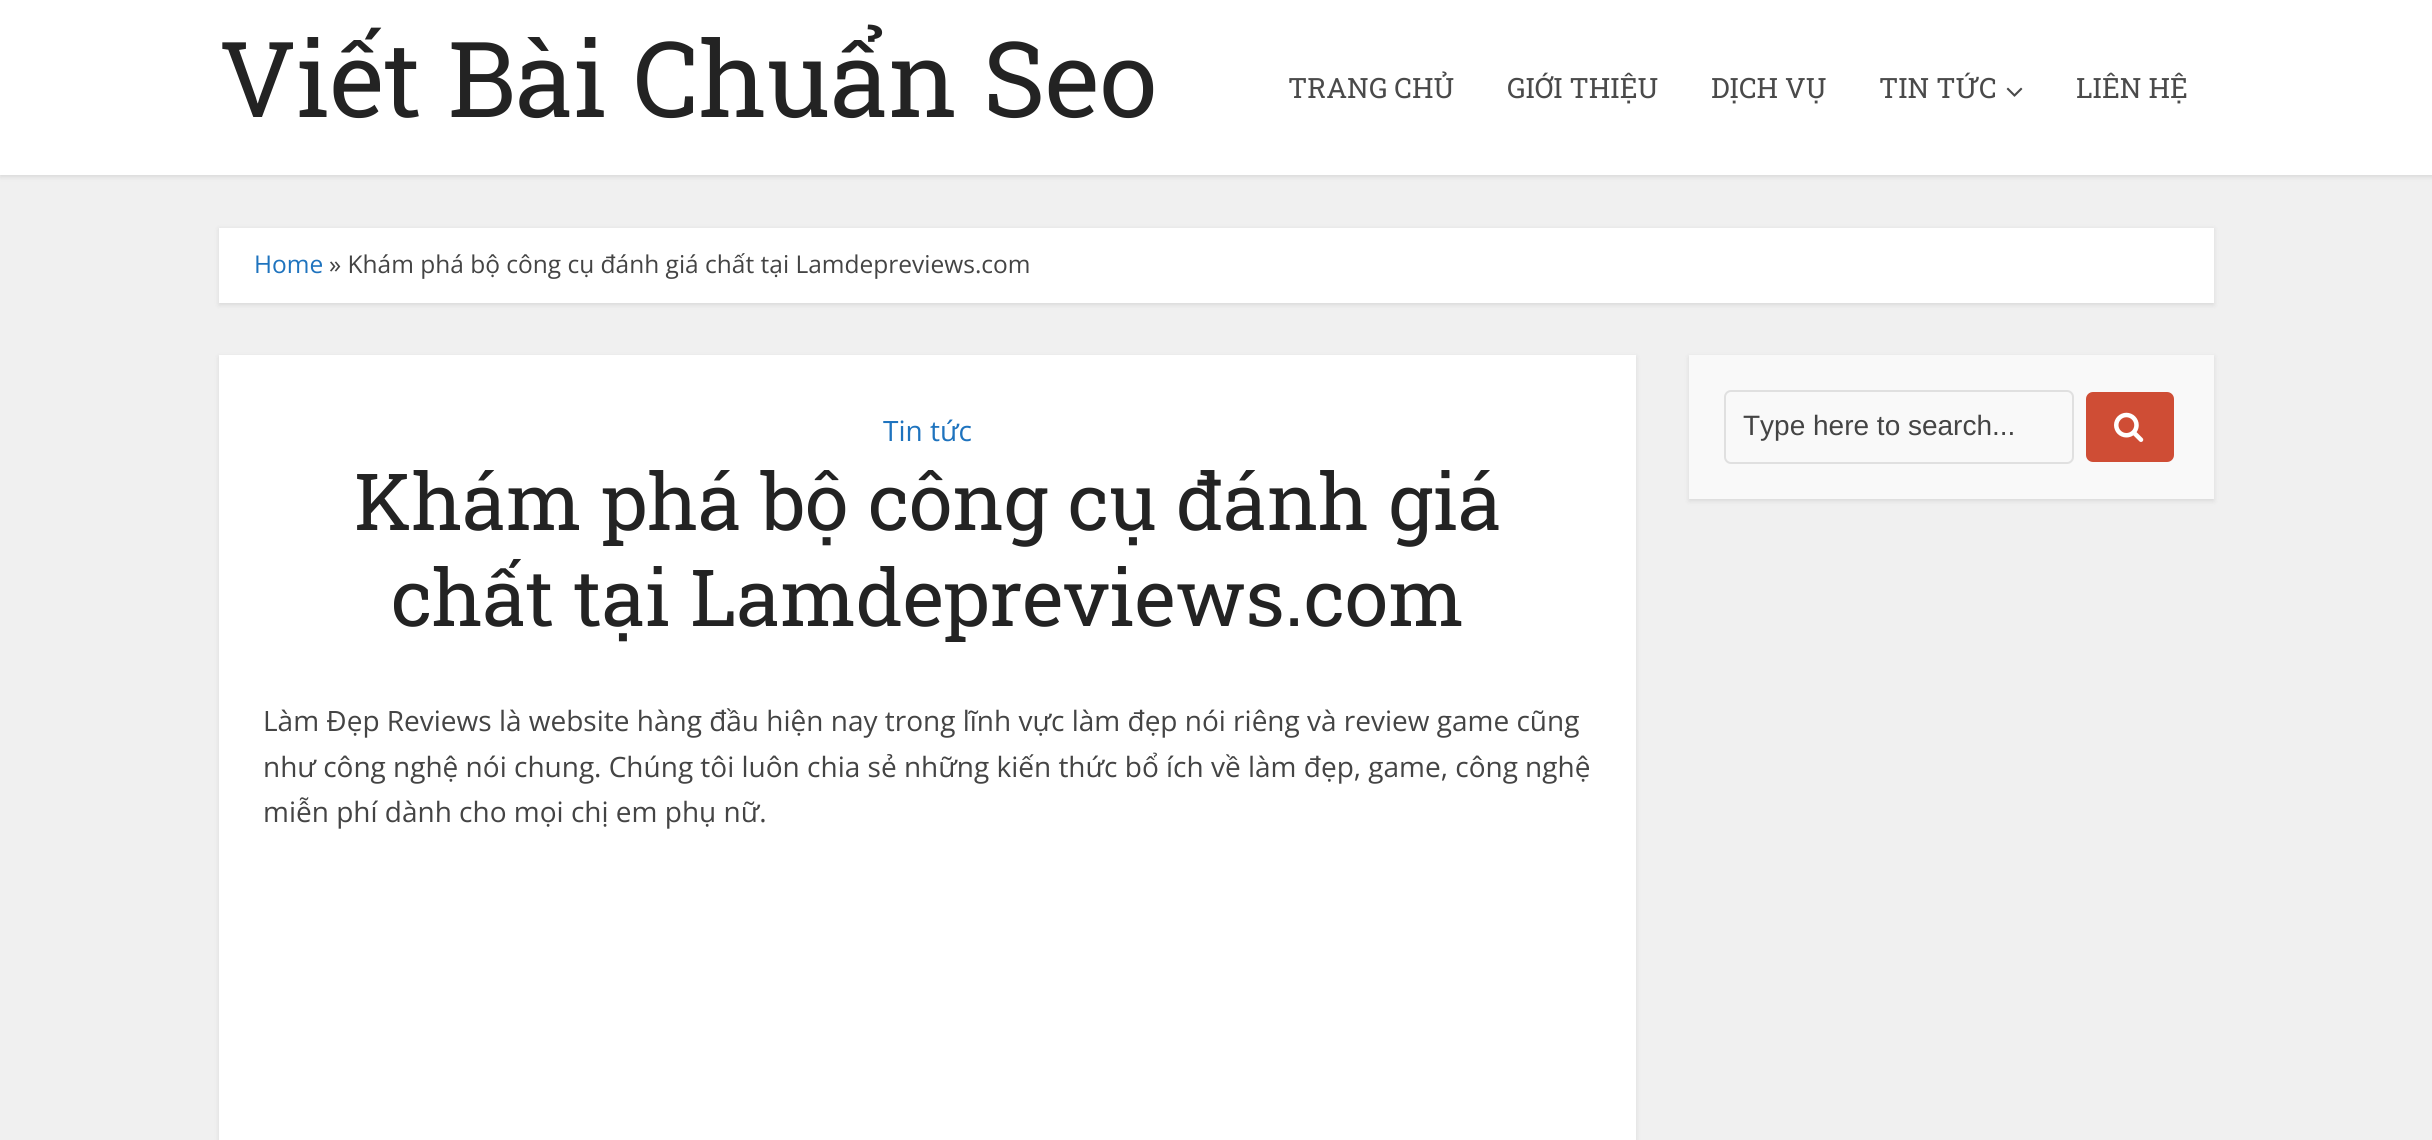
import math
import cairo

surface = cairo.ImageSurface(cairo.FORMAT_RGB24, 2432, 1140)
ctx = cairo.Context(surface)
options = cairo.FontOptions()
options.set_hint_metrics(cairo.HINT_METRICS_OFF)
options.set_hint_style(cairo.HINT_STYLE_NONE)
ctx.set_font_options(options)
ctx.set_miter_limit(4)


def set_color(code):
    ctx.set_source_rgb(*(v / 255 for v in bytes.fromhex(code[-6:])))


def draw_text(x, y, s, family, size, color, bold=False, italic=False):
    ctx.select_font_face(family, cairo.FONT_SLANT_ITALIC if italic else cairo.FONT_SLANT_NORMAL, cairo.FONT_WEIGHT_BOLD if bold else cairo.FONT_WEIGHT_NORMAL)
    ctx.set_font_size(size)
    set_color(color)
    ctx.move_to(x, y)
    ctx.show_text(s)


def fill_rect(x, y, w, h, color):
    set_color(color)
    ctx.rectangle(x, y, w, h)
    ctx.fill()


def rounded_rect(x, y, w, h, r):
    ctx.new_sub_path()
    for i, (u, v) in enumerate([(x + w - r, y + h - r), (x + r, y + h - r), (x + r, y + r), (x + w - r, y + r)]):
        ctx.arc(u, v, r, i * math.pi / 2, (i + 1) * math.pi / 2)
    ctx.close_path()


def draw_shadow(x, y, w, h, r, blur, alpha):
    ctx.push_group_with_content(cairo.CONTENT_ALPHA)
    ctx.set_operator(cairo.OPERATOR_SOURCE)
    for i in range(15, -16, -2):
        e = blur * i / 6
        if min(w, h) + 2 * e > 0:
            ctx.set_source_rgba(0, 0, 0, alpha * math.erfc((i - 1) / 8.5) / 2)
            rounded_rect(x - e, y - e, w + 2 * e, h + 2 * e, max(0, min(r + e + blur * .6, min(w, h) / 2 + e)))
            ctx.fill()
    ctx.mask(ctx.pop_group())


def draw_image(path, x, y, w, h):
    ctx.save()
    ctx.set_source_surface(cairo.ImageSurface.create_from_png(path), x, y)
    ctx.rectangle(x, y, w, h)
    ctx.fill()
    ctx.restore()


set_color("#f0f0f0")
ctx.paint()
set_color("#000000")
draw_shadow(0, 2, 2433, 175, 0, 2.5, 0.1)
fill_rect(0, 0, 2432, 175, "#ffffff")
draw_text(219, 117, "Viết Bài Chuẩn Seo", "Roboto Slab", 105, "#232323")
draw_text(1288, 98, "TRANG CHỦ", "Roboto Slab", 28, "#4a4a4a")
draw_text(1507, 98, "GIỚI THIỆU", "Roboto Slab", 28, "#4a4a4a")
draw_text(1711, 98, "DỊCH VỤ", "Roboto Slab", 28, "#4a4a4a")
draw_text(1879, 98, "TIN TỨC", "Roboto Slab", 28, "#4a4a4a")
draw_image("assets/img1.png", 2006, 87, 17, 10)
draw_text(2076, 98, "LIÊN HỆ", "Roboto Slab", 28, "#4a4a4a")
set_color("#000000")
draw_shadow(219, 229, 1995, 76, 0, 2.5, 0.1)
fill_rect(219, 228, 1995, 75, "#ffffff")
draw_text(254, 273, "Home", "Open Sans", 24.5, "#1e73be")
draw_text(329, 273, "» Khám phá bộ công cụ đánh giá chất tại Lamdepreviews.com", "Open Sans", 24.5, "#444444")
set_color("#000000")
draw_shadow(219, 357, 1417, 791, 0, 2.5, 0.1)
fill_rect(219, 355, 1417, 785, "#ffffff")
draw_text(883, 441, "Tin tức", "Open Sans", 28, "#1e73be")
draw_text(354, 530, "Khám phá bộ công cụ đánh giá", "Roboto Slab", 78.75, "#232323")
draw_text(391, 626, "chất tại Lamdepreviews.com", "Roboto Slab", 78.75, "#232323")
draw_text(263, 731, "Làm Đẹp Reviews là website hàng đầu hiện nay trong lĩnh vực làm đẹp nói riêng và review game cũng", "Open Sans", 28, "#444444")
draw_text(263, 777, "như công nghệ nói chung. Chúng tôi luôn chia sẻ những kiến thức bổ ích về làm đẹp, game, công nghệ", "Open Sans", 28, "#444444")
draw_text(263, 822, "miễn phí dành cho mọi chị em phụ nữ.", "Open Sans", 28, "#444444")
set_color("#000000")
draw_shadow(1689, 357, 525, 144, 0, 2.5, 0.1)
fill_rect(1689, 355, 525, 144, "#f9f9f9")
rounded_rect(1725, 391, 348, 72, 6)
set_color("#e0e0e0")
ctx.stroke()
draw_text(1743, 435, "Type here to search...", "Liberation Sans", 28, "#444444")
set_color("#cf4d35")
rounded_rect(2086, 392, 88, 70, 7)
ctx.fill()
draw_image("assets/img2.png", 2114, 412, 30, 30)
surface.write_to_png("output.png")
